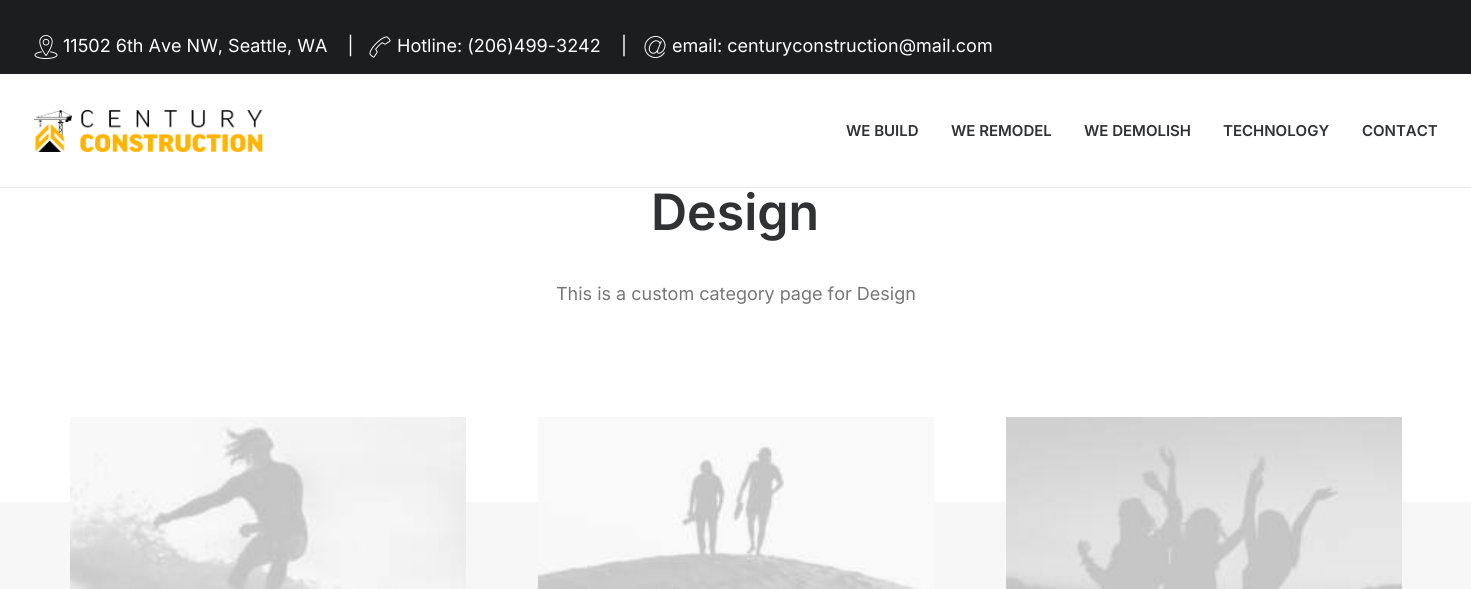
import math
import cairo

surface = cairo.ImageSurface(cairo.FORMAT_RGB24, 1471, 589)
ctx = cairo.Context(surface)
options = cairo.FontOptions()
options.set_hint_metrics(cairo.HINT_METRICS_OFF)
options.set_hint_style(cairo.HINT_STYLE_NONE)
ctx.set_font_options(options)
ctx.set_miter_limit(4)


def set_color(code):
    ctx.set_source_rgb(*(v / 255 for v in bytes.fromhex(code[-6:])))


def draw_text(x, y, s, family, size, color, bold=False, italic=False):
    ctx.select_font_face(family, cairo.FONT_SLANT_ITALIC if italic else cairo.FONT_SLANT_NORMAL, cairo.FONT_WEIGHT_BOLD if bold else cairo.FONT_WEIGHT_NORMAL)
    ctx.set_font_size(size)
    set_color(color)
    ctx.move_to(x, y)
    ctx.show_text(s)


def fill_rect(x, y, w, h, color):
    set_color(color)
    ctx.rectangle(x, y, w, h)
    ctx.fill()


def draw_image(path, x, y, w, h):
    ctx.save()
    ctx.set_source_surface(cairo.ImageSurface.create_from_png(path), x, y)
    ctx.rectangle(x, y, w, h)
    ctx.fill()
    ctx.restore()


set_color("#ffffff")
ctx.paint()
fill_rect(0, 0, 1471, 74, "#1b1d1f")
draw_image("assets/img1.png", 34, 35, 24, 24)
draw_text(63, 52, "11502 6th Ave NW, Seattle, WA    |", "Inter", 18, "#ffffff")
draw_image("assets/img2.png", 369, 36, 22, 22)
draw_text(397, 52, "Hotline: (206)499-3242", "Inter", 18, "#ffffff")
draw_text(621, 52, "|", "Inter", 18, "#ffffff")
draw_image("assets/img3.png", 644, 36, 22, 22)
draw_text(672, 52, "email: centuryconstruction@mail.com", "Inter", 18, "#ffffff")
draw_image("assets/img4.png", 34, 110, 229, 42)
draw_text(846, 136, "WE BUILD", "Inter SemiBold", 15, "#303133")
draw_text(951, 136, "WE REMODEL", "Inter SemiBold", 15, "#303133")
draw_text(1084, 136, "WE DEMOLISH", "Inter SemiBold", 15, "#303133")
draw_text(1223, 136, "TECHNOLOGY", "Inter SemiBold", 15, "#303133")
draw_text(1362, 136, "CONTACT", "Inter SemiBold", 15, "#303133")
fill_rect(0, 187, 1471, 1, "#eaeaea")
draw_text(651, 230, "Design", "Inter SemiBold", 50, "#303133")
draw_text(556, 300, "This is a custom category page for Design", "Inter", 18, "#777777")
fill_rect(0, 502, 1471, 87, "#f7f7f7")
draw_image("assets/img5.png", 70, 417, 396, 172)
draw_image("assets/img6.png", 538, 417, 396, 172)
draw_image("assets/img7.png", 1006, 417, 396, 172)
surface.write_to_png("output.png")
